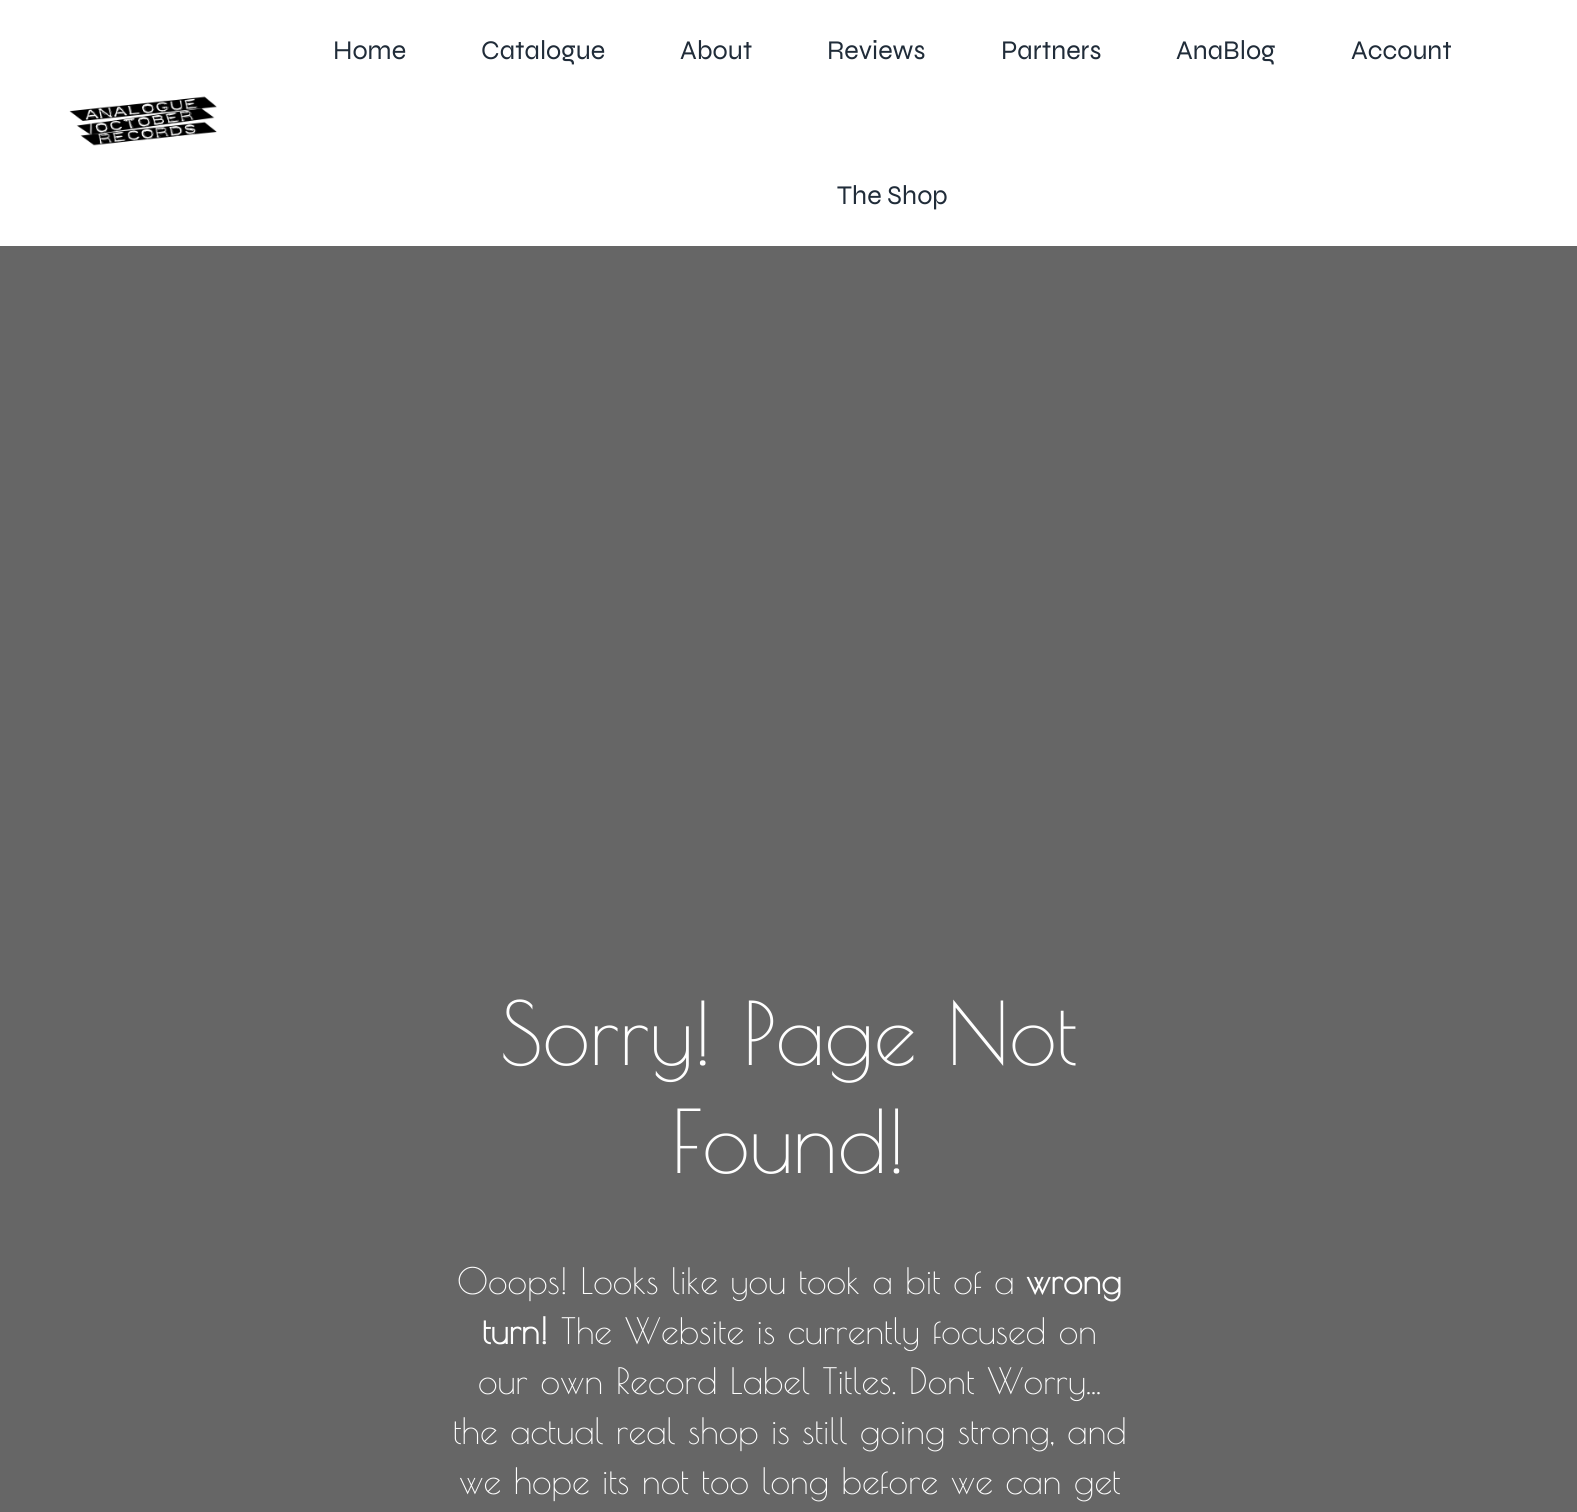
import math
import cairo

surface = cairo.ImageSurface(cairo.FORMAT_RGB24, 1577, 1512)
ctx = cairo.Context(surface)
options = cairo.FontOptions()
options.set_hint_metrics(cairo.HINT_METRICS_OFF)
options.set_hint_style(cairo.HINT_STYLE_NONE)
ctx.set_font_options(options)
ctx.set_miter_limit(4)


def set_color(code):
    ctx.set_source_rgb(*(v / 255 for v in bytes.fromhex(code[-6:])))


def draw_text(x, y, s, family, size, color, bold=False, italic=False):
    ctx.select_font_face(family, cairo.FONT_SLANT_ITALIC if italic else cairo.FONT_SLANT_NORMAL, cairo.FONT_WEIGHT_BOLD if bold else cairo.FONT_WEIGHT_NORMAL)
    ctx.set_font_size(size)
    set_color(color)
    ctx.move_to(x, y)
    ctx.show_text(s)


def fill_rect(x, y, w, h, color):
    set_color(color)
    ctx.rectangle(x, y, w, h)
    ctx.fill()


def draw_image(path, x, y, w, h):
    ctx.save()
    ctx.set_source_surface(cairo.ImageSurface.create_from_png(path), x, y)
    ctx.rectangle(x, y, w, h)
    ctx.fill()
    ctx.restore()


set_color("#ffffff")
ctx.paint()
draw_image("assets/img1.png", 69, 96, 148, 50)
draw_text(333, 59, "Home", "Syne", 27, "#202c39")
draw_text(481, 59, "Catalogue", "Syne", 27, "#202c39")
draw_text(680, 59, "About", "Syne", 27, "#202c39")
draw_text(827, 59, "Reviews", "Syne", 27, "#202c39")
draw_text(1001, 59, "Partners", "Syne", 27, "#202c39")
draw_text(1176, 59, "AnaBlog", "Syne", 27, "#202c39")
draw_text(1351, 59, "Account", "Syne", 27, "#202c39")
draw_text(837, 204, "The Shop", "Syne", 27, "#202c39")
fill_rect(0, 246, 1577, 1266, "#666666")
draw_text(500, 1065, "Sorry! Page Not", "Poiret One", 86, "#ffffff")
draw_text(671, 1173, "Found!", "Poiret One", 86, "#ffffff")
draw_text(457, 1294, "Ooops! Looks like you took a bit of a", "Poiret One", 35.75, "#ffffff")
draw_text(1026, 1294, "wrong", "Poiret One", 35.75, "#ffffff", bold=True)
draw_text(482, 1344, "turn!", "Poiret One", 35.75, "#ffffff", bold=True)
draw_text(561, 1344, "The Website is currently focused on", "Poiret One", 35.75, "#ffffff")
draw_text(478, 1394, "our own Record Label Titles. Dont Worry...", "Poiret One", 35.75, "#ffffff")
draw_text(453, 1444, "the actual real shop is still going strong, and", "Poiret One", 35.75, "#ffffff")
draw_text(459, 1494, "we hope its not too long before we can get", "Poiret One", 35.75, "#ffffff")
surface.write_to_png("output.png")
